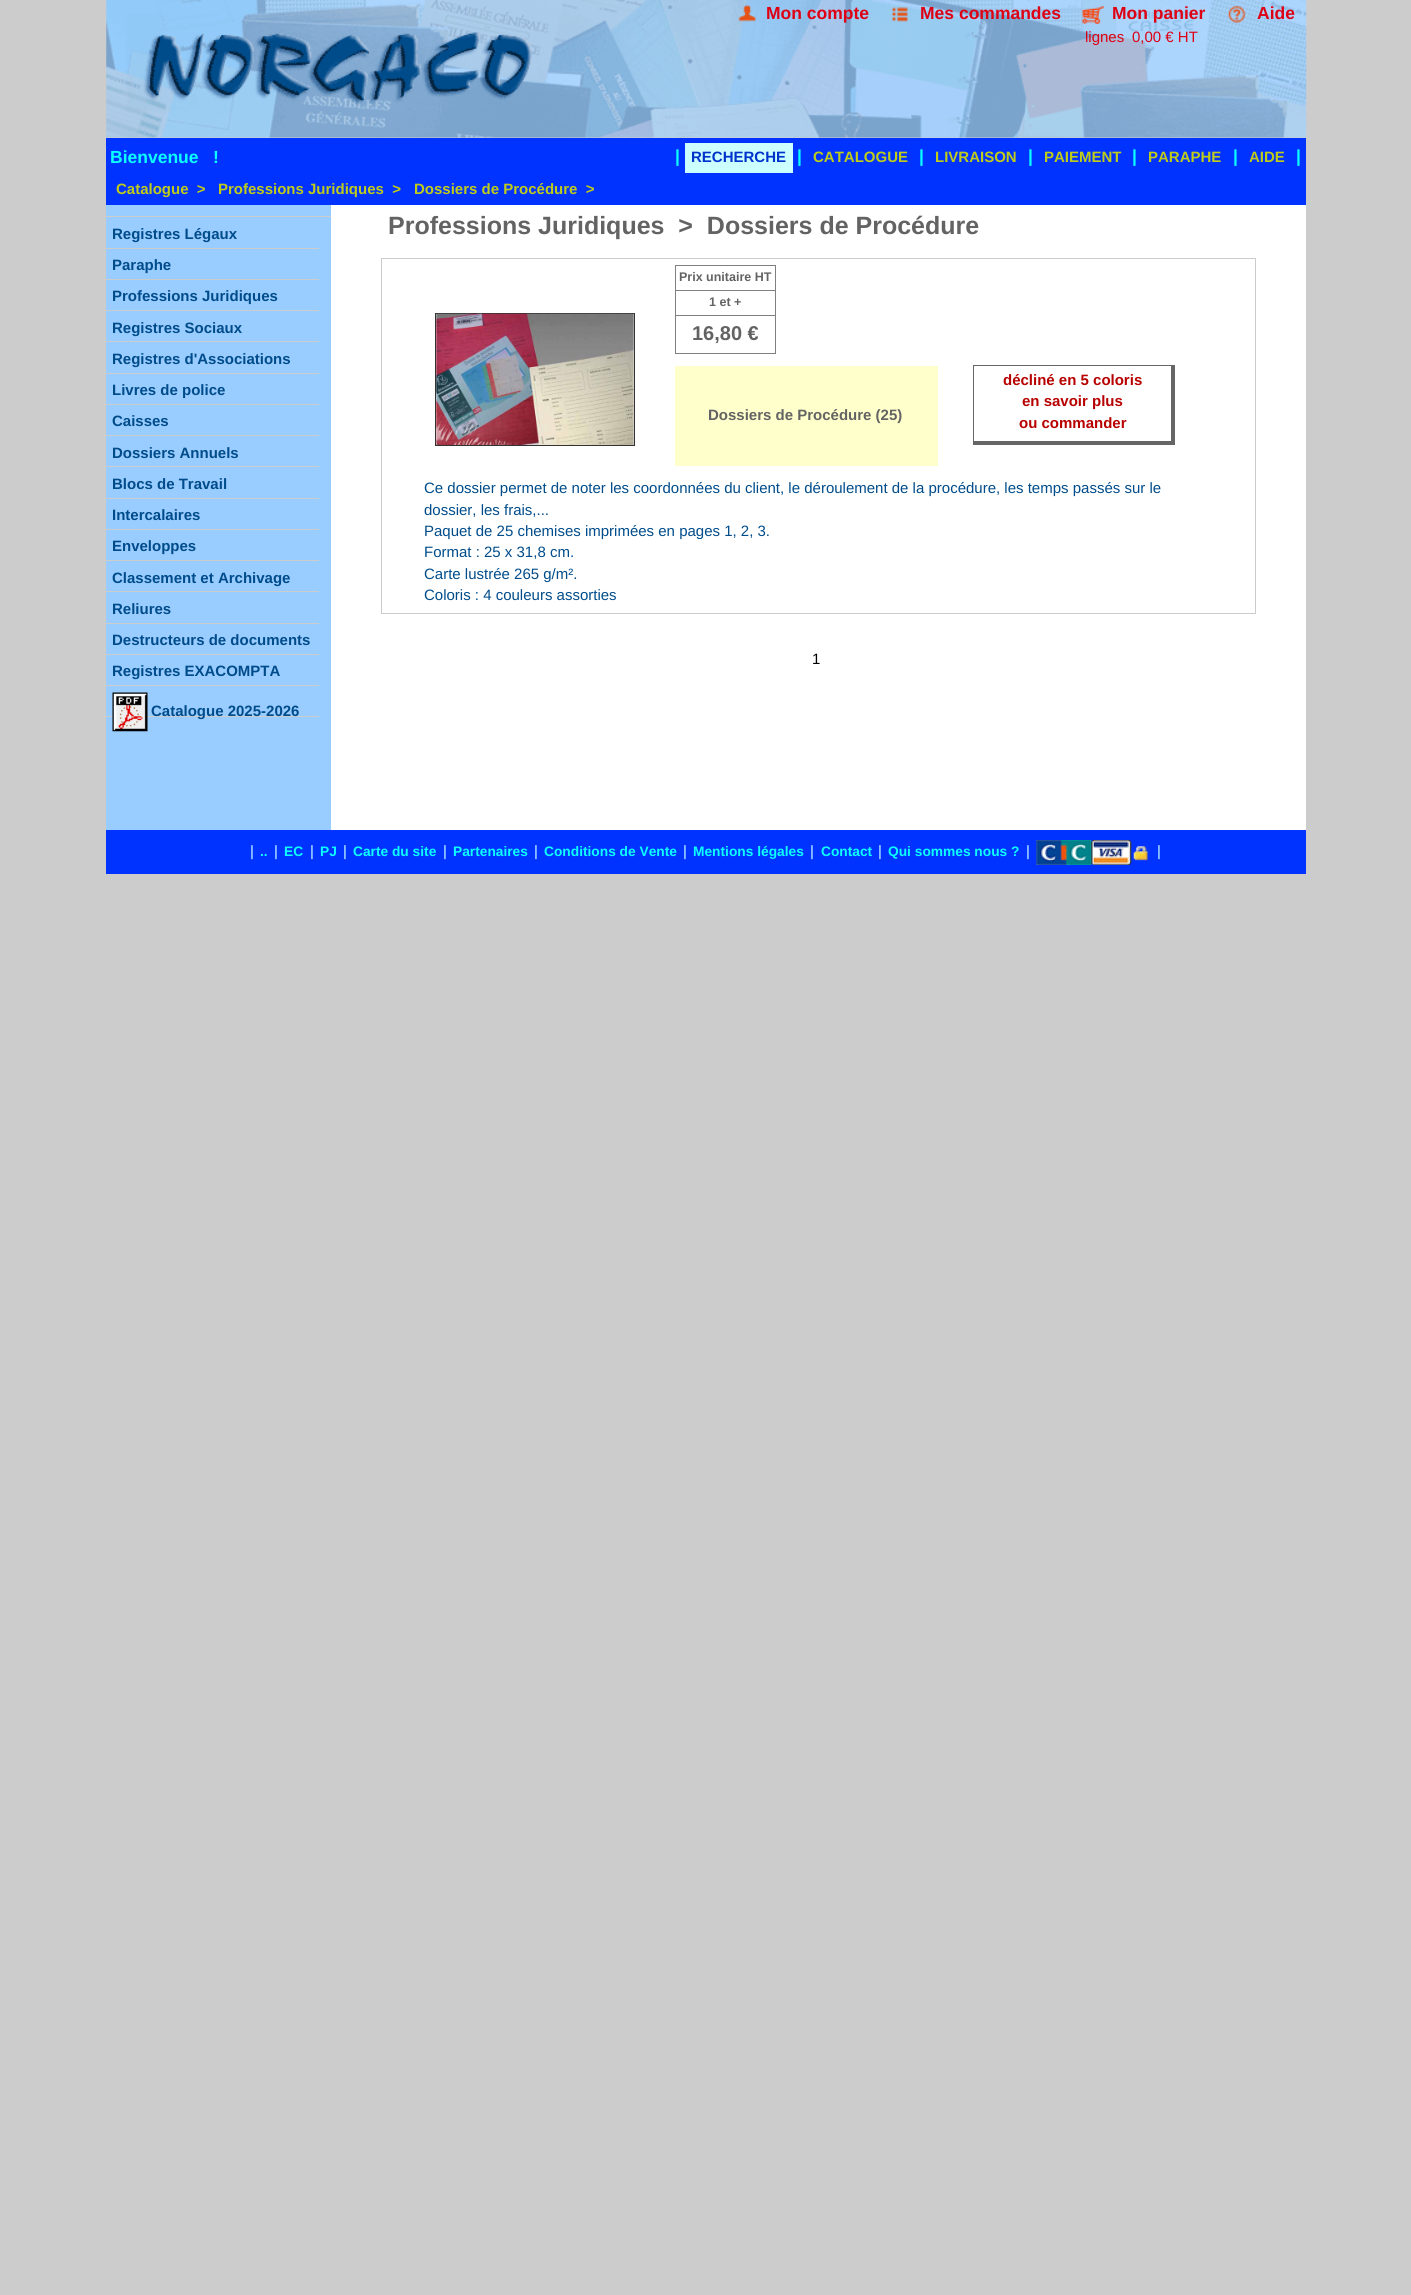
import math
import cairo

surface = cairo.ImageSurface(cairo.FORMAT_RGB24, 1411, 2295)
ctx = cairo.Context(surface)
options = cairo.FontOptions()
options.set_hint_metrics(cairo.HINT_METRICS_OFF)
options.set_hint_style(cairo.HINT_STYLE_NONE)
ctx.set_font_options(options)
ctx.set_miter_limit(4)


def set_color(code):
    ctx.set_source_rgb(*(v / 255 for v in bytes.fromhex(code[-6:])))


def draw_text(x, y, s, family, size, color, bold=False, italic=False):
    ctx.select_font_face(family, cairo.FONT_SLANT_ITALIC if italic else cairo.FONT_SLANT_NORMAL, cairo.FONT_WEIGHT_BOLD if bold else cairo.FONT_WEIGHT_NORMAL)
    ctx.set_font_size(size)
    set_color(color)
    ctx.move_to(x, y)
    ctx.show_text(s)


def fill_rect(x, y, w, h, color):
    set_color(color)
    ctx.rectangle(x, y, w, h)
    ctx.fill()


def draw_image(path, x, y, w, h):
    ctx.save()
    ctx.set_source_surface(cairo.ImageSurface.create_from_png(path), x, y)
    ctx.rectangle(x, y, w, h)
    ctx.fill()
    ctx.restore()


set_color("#cccccc")
ctx.paint()
draw_image("assets/img1.png", 106, 0, 1201, 138)
draw_image("assets/img2.png", 738, 4, 19, 18)
draw_text(766, 19, "Mon compte", "Liberation Sans", 17.5, "#de0013", bold=True)
draw_image("assets/img3.png", 892, 7, 16, 15)
draw_text(920, 19, "Mes commandes", "Liberation Sans", 17.5, "#de0013", bold=True)
draw_image("assets/img4.png", 1081, 6, 24, 18)
draw_text(1112, 19, "Mon panier", "Liberation Sans", 17.5, "#de0013", bold=True)
draw_image("assets/img5.png", 1228, 6, 18, 17)
draw_text(1257, 19, "Aide", "Liberation Sans", 17.5, "#de0013", bold=True)
draw_text(1085, 42, "lignes", "Liberation Sans", 15, "#de0013")
draw_text(1132, 42, "0,00 € HT", "Liberation Sans", 15, "#de0013")
fill_rect(106, 138, 1200, 67, "#0033ff")
draw_text(110, 163, "Bienvenue   !", "Liberation Sans", 17.5, "#0cffff", bold=True)
draw_text(675, 162, "|", "Liberation Sans", 17.5, "#0cffff", bold=True)
fill_rect(685, 143, 108, 30, "#ccffff")
draw_text(691, 162, "RECHERCHE", "Liberation Sans", 15, "#0033cc", bold=True)
draw_text(797, 162, "|", "Liberation Sans", 17.5, "#0cffff", bold=True)
draw_text(813, 162, "CATALOGUE", "Liberation Sans", 15, "#bfcc1a", bold=True)
draw_text(919, 162, "|", "Liberation Sans", 17.5, "#0cffff", bold=True)
draw_text(935, 162, "LIVRAISON", "Liberation Sans", 15, "#bfcc1a", bold=True)
draw_text(1028, 162, "|", "Liberation Sans", 17.5, "#0cffff", bold=True)
draw_text(1044, 162, "PAIEMENT", "Liberation Sans", 15, "#bfcc1a", bold=True)
draw_text(1132, 162, "|", "Liberation Sans", 17.5, "#0cffff", bold=True)
draw_text(1148, 162, "PARAPHE", "Liberation Sans", 15, "#bfcc1a", bold=True)
draw_text(1233, 162, "|", "Liberation Sans", 17.5, "#0cffff", bold=True)
draw_text(1249, 162, "AIDE", "Liberation Sans", 15, "#bfcc1a", bold=True)
draw_text(1296, 162, "|", "Liberation Sans", 17.5, "#0cffff", bold=True)
draw_text(116, 194, "Catalogue  >", "Liberation Sans", 15, "#bfcc1a", bold=True)
draw_text(218, 194, "Professions Juridiques  >", "Liberation Sans", 15, "#bfcc1a", bold=True)
draw_text(414, 194, "Dossiers de Procédure  >", "Liberation Sans", 15, "#bfcc1a", bold=True)
fill_rect(331, 205, 975, 625, "#ffffff")
fill_rect(106, 205, 225, 625, "#99ccff")
fill_rect(106, 216, 225, 1, "#cccccc")
fill_rect(106, 248, 213, 1, "#cccccc")
draw_text(112, 239, "Registres Légaux", "Liberation Sans", 15, "#004c8b", bold=True)
fill_rect(106, 279, 213, 1, "#cccccc")
draw_text(112, 270, "Paraphe", "Liberation Sans", 15, "#004c8b", bold=True)
fill_rect(106, 310, 213, 1, "#cccccc")
draw_text(112, 301, "Professions Juridiques", "Liberation Sans", 15, "#004c8b", bold=True)
fill_rect(106, 341, 213, 1, "#cccccc")
draw_text(112, 333, "Registres Sociaux", "Liberation Sans", 15, "#004c8b", bold=True)
fill_rect(106, 373, 213, 1, "#cccccc")
draw_text(112, 364, "Registres d'Associations", "Liberation Sans", 15, "#004c8b", bold=True)
fill_rect(106, 404, 213, 1, "#cccccc")
draw_text(112, 395, "Livres de police", "Liberation Sans", 15, "#004c8b", bold=True)
fill_rect(106, 435, 213, 1, "#cccccc")
draw_text(112, 426, "Caisses", "Liberation Sans", 15, "#004c8b", bold=True)
fill_rect(106, 466, 213, 1, "#cccccc")
draw_text(112, 458, "Dossiers Annuels", "Liberation Sans", 15, "#004c8b", bold=True)
fill_rect(106, 498, 213, 1, "#cccccc")
draw_text(112, 489, "Blocs de Travail", "Liberation Sans", 15, "#004c8b", bold=True)
fill_rect(106, 529, 213, 1, "#cccccc")
draw_text(112, 520, "Intercalaires", "Liberation Sans", 15, "#004c8b", bold=True)
fill_rect(106, 560, 213, 1, "#cccccc")
draw_text(112, 551, "Enveloppes", "Liberation Sans", 15, "#004c8b", bold=True)
fill_rect(106, 591, 213, 1, "#cccccc")
draw_text(112, 583, "Classement et Archivage", "Liberation Sans", 15, "#004c8b", bold=True)
fill_rect(106, 623, 213, 1, "#cccccc")
draw_text(112, 614, "Reliures", "Liberation Sans", 15, "#004c8b", bold=True)
fill_rect(106, 654, 213, 1, "#cccccc")
draw_text(112, 645, "Destructeurs de documents", "Liberation Sans", 15, "#004c8b", bold=True)
fill_rect(106, 685, 213, 1, "#cccccc")
draw_text(112, 676, "Registres EXACOMPTA", "Liberation Sans", 15, "#004c8b", bold=True)
fill_rect(106, 716, 213, 1, "#cccccc")
draw_image("assets/img6.png", 112, 692, 36, 40)
draw_text(151, 716, "Catalogue 2025-2026", "Liberation Sans", 15, "#004c8b", bold=True)
draw_text(388, 234, "Professions Juridiques  >  Dossiers de Procédure", "Liberation Sans", 25, "#636363", bold=True)
ctx.rectangle(381.5, 258.5, 874, 355)
set_color("#cccccc")
ctx.set_line_width(1)
ctx.stroke()
ctx.rectangle(435.5, 313.5, 199, 132)
set_color("#333333")
ctx.stroke()
draw_image("assets/img7.png", 436, 313, 198, 132)
fill_rect(675, 265, 101, 1, "#808080")
fill_rect(775, 265, 1, 89, "#808080")
fill_rect(675, 353, 101, 1, "#808080")
fill_rect(675, 265, 1, 89, "#808080")
draw_text(679, 281, "Prix unitaire HT", "Liberation Sans", 12.5, "#636363", bold=True)
fill_rect(675, 290, 101, 1, "#808080")
draw_text(709, 306, "1 et +", "Liberation Sans", 12.5, "#636363", bold=True)
fill_rect(675, 315, 101, 1, "#808080")
draw_text(692, 340, "16,80 €", "Liberation Sans", 20, "#636363", bold=True)
fill_rect(675, 366, 263, 100, "#ffffcc")
draw_text(708, 420, "Dossiers de Procédure (25)", "Liberation Sans", 15, "#636363", bold=True)
fill_rect(973, 365, 202, 1, "#666666")
fill_rect(1171, 365, 4, 80, "#666666")
fill_rect(973, 441, 202, 4, "#666666")
fill_rect(973, 365, 1, 80, "#666666")
draw_text(1003, 385, "décliné en 5 coloris", "Liberation Sans", 15, "#b70100", bold=True)
draw_text(1022, 406, "en savoir plus", "Liberation Sans", 15, "#b70100", bold=True)
draw_text(1019, 428, "ou commander", "Liberation Sans", 15, "#b70100", bold=True)
draw_text(424, 493, "Ce dossier permet de noter les coordonnées du client, le déroulement de la procédure, les temps passés sur le", "Liberation Sans", 15, "#004c8b")
draw_text(424, 515, "dossier, les frais,...", "Liberation Sans", 15, "#004c8b")
draw_text(424, 536, "Paquet de 25 chemises imprimées en pages 1, 2, 3.", "Liberation Sans", 15, "#004c8b")
draw_text(424, 557, "Format : 25 x 31,8 cm.", "Liberation Sans", 15, "#004c8b")
draw_text(424, 579, "Carte lustrée 265 g/m².", "Liberation Sans", 15, "#004c8b")
draw_text(424, 600, "Coloris : 4 couleurs assorties", "Liberation Sans", 15, "#004c8b")
draw_text(812, 664, "1", "Liberation Sans", 15, "#000000")
fill_rect(106, 830, 1200, 44, "#0033ff")
draw_text(250, 856, "|", "Liberation Sans", 15, "#ccffff")
draw_text(260, 856, "..", "Liberation Sans", 13.75, "#0cffff", bold=True)
draw_text(274, 856, "|", "Liberation Sans", 15, "#ccffff")
draw_text(284, 856, "EC", "Liberation Sans", 13.75, "#0cffff", bold=True)
draw_text(310, 856, "|", "Liberation Sans", 15, "#ccffff")
draw_text(320, 856, "PJ", "Liberation Sans", 13.75, "#0cffff", bold=True)
draw_text(343, 856, "|", "Liberation Sans", 15, "#ccffff")
draw_text(353, 856, "Carte du site", "Liberation Sans", 13.75, "#0cffff", bold=True)
draw_text(443, 856, "|", "Liberation Sans", 15, "#ccffff")
draw_text(453, 856, "Partenaires", "Liberation Sans", 13.75, "#0cffff", bold=True)
draw_text(534, 856, "|", "Liberation Sans", 15, "#ccffff")
draw_text(544, 856, "Conditions de Vente", "Liberation Sans", 13.75, "#0cffff", bold=True)
draw_text(683, 856, "|", "Liberation Sans", 15, "#ccffff")
draw_text(693, 856, "Mentions légales", "Liberation Sans", 13.75, "#0cffff", bold=True)
draw_text(810, 856, "|", "Liberation Sans", 15, "#ccffff")
draw_text(821, 856, "Contact", "Liberation Sans", 13.75, "#0cffff", bold=True)
draw_text(878, 856, "|", "Liberation Sans", 15, "#ccffff")
draw_text(888, 856, "Qui sommes nous ?", "Liberation Sans", 13.75, "#0cffff", bold=True)
draw_text(1026, 856, "|", "Liberation Sans", 15, "#ccffff")
draw_image("assets/img8.png", 1036, 840, 112, 25)
draw_text(1157, 856, "|", "Liberation Sans", 15, "#ccffff")
surface.write_to_png("output.png")
